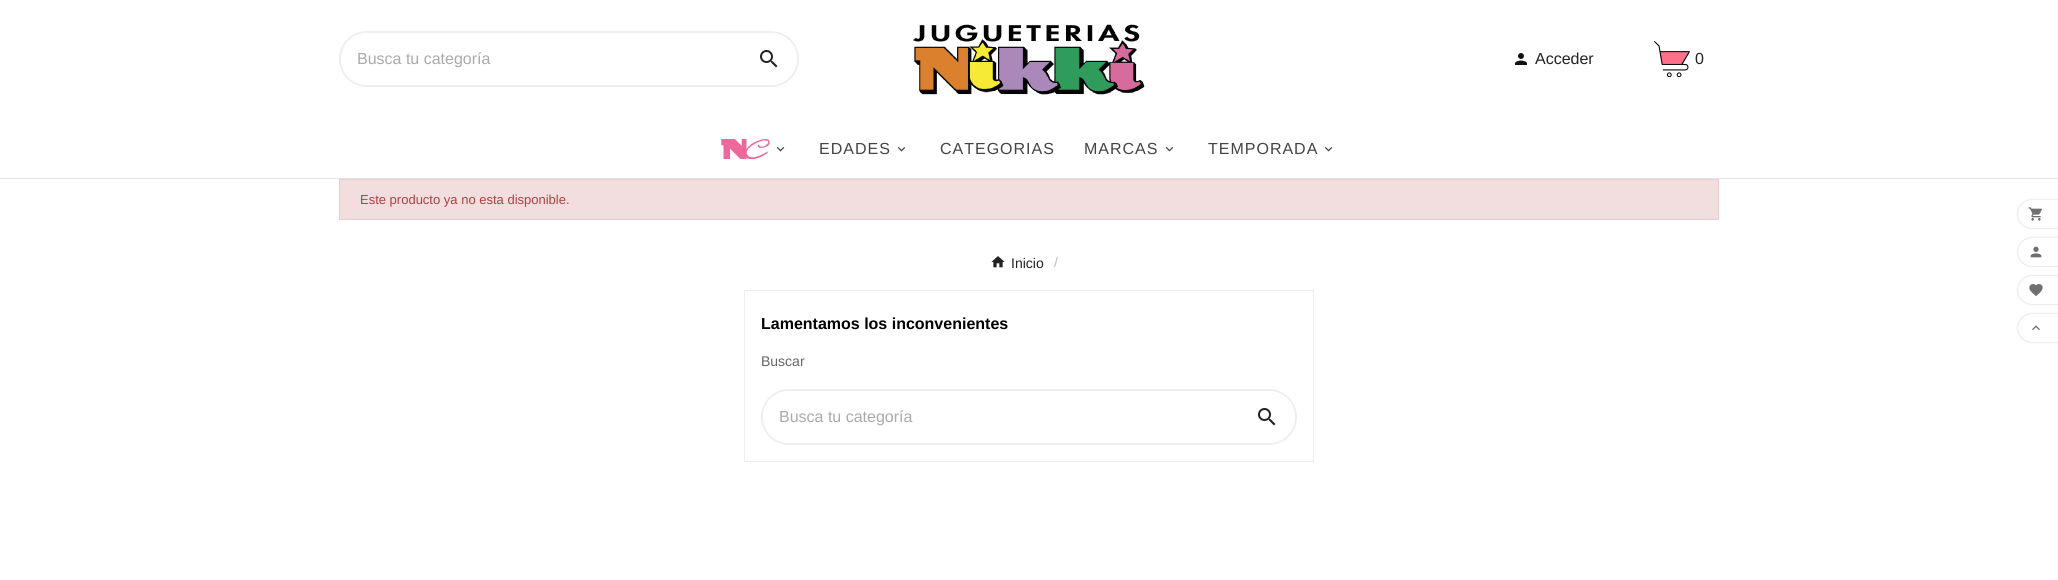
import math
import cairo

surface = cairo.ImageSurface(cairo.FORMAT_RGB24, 2058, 580)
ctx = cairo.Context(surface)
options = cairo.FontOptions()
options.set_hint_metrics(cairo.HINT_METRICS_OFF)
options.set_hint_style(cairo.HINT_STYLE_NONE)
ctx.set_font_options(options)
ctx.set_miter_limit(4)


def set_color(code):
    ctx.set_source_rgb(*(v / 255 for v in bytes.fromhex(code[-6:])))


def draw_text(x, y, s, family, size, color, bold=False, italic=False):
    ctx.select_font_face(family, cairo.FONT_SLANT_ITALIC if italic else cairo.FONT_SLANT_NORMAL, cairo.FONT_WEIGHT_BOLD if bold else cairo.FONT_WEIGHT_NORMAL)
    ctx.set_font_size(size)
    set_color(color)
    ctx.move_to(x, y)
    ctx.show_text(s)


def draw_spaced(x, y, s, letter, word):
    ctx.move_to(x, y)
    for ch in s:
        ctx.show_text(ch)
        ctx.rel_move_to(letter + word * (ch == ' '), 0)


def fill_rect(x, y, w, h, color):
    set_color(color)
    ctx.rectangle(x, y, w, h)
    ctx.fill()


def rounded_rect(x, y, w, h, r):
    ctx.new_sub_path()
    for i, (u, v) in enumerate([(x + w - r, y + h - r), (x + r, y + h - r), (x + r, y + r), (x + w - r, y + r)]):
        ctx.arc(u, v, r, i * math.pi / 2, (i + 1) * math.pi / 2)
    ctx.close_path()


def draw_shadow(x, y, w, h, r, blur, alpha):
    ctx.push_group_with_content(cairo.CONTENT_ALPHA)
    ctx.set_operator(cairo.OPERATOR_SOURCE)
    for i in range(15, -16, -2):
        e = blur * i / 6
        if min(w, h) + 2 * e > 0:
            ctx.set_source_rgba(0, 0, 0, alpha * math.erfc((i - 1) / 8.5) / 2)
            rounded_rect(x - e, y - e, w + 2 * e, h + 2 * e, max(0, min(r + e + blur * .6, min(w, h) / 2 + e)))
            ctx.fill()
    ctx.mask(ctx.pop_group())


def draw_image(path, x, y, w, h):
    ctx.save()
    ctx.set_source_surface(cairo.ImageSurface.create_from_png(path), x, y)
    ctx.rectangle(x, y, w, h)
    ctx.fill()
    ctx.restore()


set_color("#ffffff")
ctx.paint()
fill_rect(0, 178, 2058, 1, "#e5e5e5")
rounded_rect(340, 32, 458, 54, 27)
set_color("#eeeeee")
ctx.stroke()
set_color("#ffffff")
ctx.new_path()
ctx.move_to(367, 33)
ctx.line_to(741, 33)
ctx.line_to(741, 85)
ctx.line_to(367, 85)
ctx.curve_to(352.5, 85, 341, 73.5, 341, 59)
ctx.curve_to(341, 44.5, 352.5, 33, 367, 33)
ctx.close_path()
ctx.fill()
draw_text(357, 64, "Busca tu categoría", "Arimo", 16, "#aaaaaa")
set_color("#ffffff")
ctx.new_path()
ctx.move_to(741, 33)
ctx.line_to(771, 33)
ctx.curve_to(785.5, 33, 797, 44.5, 797, 59)
ctx.curve_to(797, 73.5, 785.5, 85, 771, 85)
ctx.line_to(741, 85)
ctx.close_path()
ctx.fill()
draw_image("assets/img1.png", 760, 50, 18, 18)
draw_image("assets/img2.png", 913, 24, 232, 71)
draw_image("assets/img3.png", 1515, 53, 12, 12)
draw_text(1535, 64, "Acceder", "Arimo", 16, "#222222")
draw_image("assets/img4.png", 1654, 41, 36, 36)
draw_text(1695, 64, "0", "Arimo", 16, "#222222")
draw_image("assets/img5.png", 721, 139, 49, 20)
draw_image("assets/img6.png", 776, 147, 9, 5)
set_color("#444444")
draw_spaced(819, 154, "EDADES", 1, 0)
draw_image("assets/img6.png", 897, 147, 9, 5)
draw_spaced(940, 154, "CATEGORIAS", 1, 0)
draw_spaced(1084, 154, "MARCAS", 1, 0)
draw_image("assets/img6.png", 1165, 147, 9, 5)
draw_spaced(1208, 154, "TEMPORADA", 1, 0)
draw_image("assets/img6.png", 1324, 147, 9, 5)
set_color("#f2dede")
ctx.rectangle(339.5, 179.5, 1379, 40)
ctx.fill_preserve()
set_color("#ebcccc")
ctx.set_line_width(1)
ctx.stroke()
draw_text(360, 204, "Este producto ya no esta disponible.", "Arimo", 13, "#a94442")
draw_image("assets/img7.png", 991, 256, 14, 12)
draw_text(1011, 268, "Inicio", "Arimo", 14, "#222222")
draw_text(1054, 267, "/", "Arimo", 14, "#bdbdbd")
ctx.rectangle(744.5, 290.5, 569, 171)
set_color("#eeeeee")
ctx.stroke()
draw_text(761, 329, "Lamentamos los inconvenientes", "Arimo", 16, "#000000", bold=True)
draw_text(761, 366, "Buscar", "Arimo", 14, "#666666")
rounded_rect(762, 390, 534, 54, 27)
set_color("#eeeeee")
ctx.set_line_width(2)
ctx.stroke()
set_color("#ffffff")
ctx.new_path()
ctx.move_to(789, 391)
ctx.line_to(1239, 391)
ctx.line_to(1239, 443)
ctx.line_to(789, 443)
ctx.curve_to(774.5, 443, 763, 431.5, 763, 417)
ctx.curve_to(763, 402.5, 774.5, 391, 789, 391)
ctx.close_path()
ctx.fill()
draw_text(779, 422, "Busca tu categoría", "Arimo", 16, "#aaaaaa")
set_color("#ffffff")
ctx.new_path()
ctx.move_to(1239, 391)
ctx.line_to(1269, 391)
ctx.curve_to(1283.5, 391, 1295, 402.5, 1295, 417)
ctx.curve_to(1295, 431.5, 1283.5, 443, 1269, 443)
ctx.line_to(1239, 443)
ctx.close_path()
ctx.fill()
draw_image("assets/img1.png", 1258, 408, 18, 18)
set_color("#000000")
draw_shadow(2018, 200, 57, 28, 14, 1, 0.2)
set_color("#ffffff")
ctx.new_path()
ctx.move_to(2032, 200)
ctx.line_to(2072, 200)
ctx.line_to(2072, 228)
ctx.line_to(2032, 228)
ctx.curve_to(2024.5, 228, 2018, 221.5, 2018, 214)
ctx.curve_to(2018, 206.5, 2024.5, 200, 2032, 200)
ctx.close_path()
ctx.fill()
draw_image("assets/img8.png", 2028, 207, 14, 14)
set_color("#000000")
draw_shadow(2018, 238, 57, 28, 14, 1, 0.2)
set_color("#ffffff")
ctx.new_path()
ctx.move_to(2032, 238)
ctx.line_to(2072, 238)
ctx.line_to(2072, 266)
ctx.line_to(2032, 266)
ctx.curve_to(2024.5, 266, 2018, 259.5, 2018, 252)
ctx.curve_to(2018, 244.5, 2024.5, 238, 2032, 238)
ctx.close_path()
ctx.fill()
draw_image("assets/img9.png", 2030, 246, 12, 12)
set_color("#000000")
draw_shadow(2018, 276, 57, 28, 14, 1, 0.2)
set_color("#ffffff")
ctx.new_path()
ctx.move_to(2032, 276)
ctx.line_to(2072, 276)
ctx.line_to(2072, 304)
ctx.line_to(2032, 304)
ctx.curve_to(2024.5, 304, 2018, 297.5, 2018, 290)
ctx.curve_to(2018, 282.5, 2024.5, 276, 2032, 276)
ctx.close_path()
ctx.fill()
draw_image("assets/img10.png", 2029, 284, 14, 12)
set_color("#000000")
draw_shadow(2018, 314, 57, 28, 14, 1, 0.2)
set_color("#ffffff")
ctx.new_path()
ctx.move_to(2032, 314)
ctx.line_to(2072, 314)
ctx.line_to(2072, 342)
ctx.line_to(2032, 342)
ctx.curve_to(2024.5, 342, 2018, 335.5, 2018, 328)
ctx.curve_to(2018, 320.5, 2024.5, 314, 2032, 314)
ctx.close_path()
ctx.fill()
draw_image("assets/img11.png", 2032, 325, 8, 6)
surface.write_to_png("output.png")
